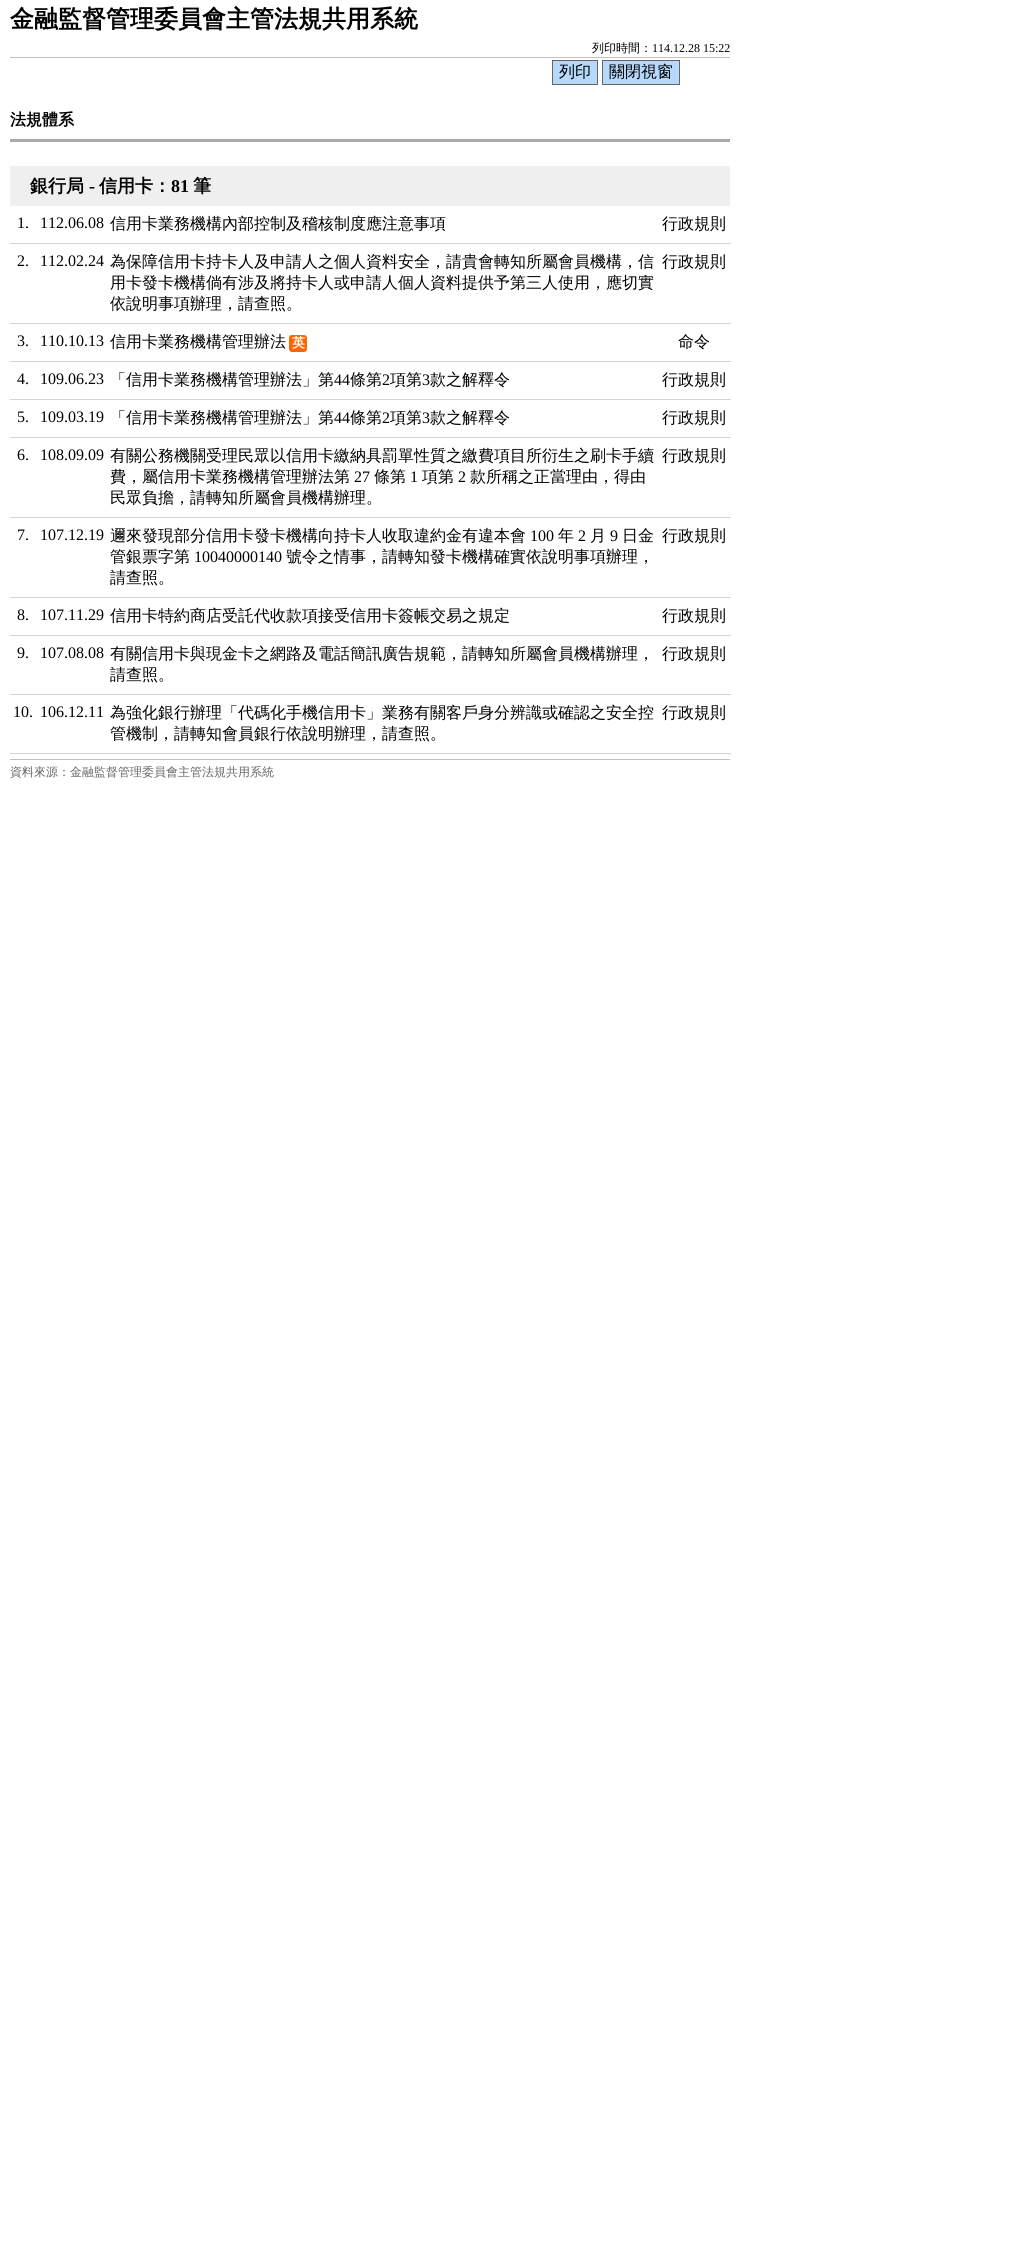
import math
import cairo

surface = cairo.ImageSurface(cairo.FORMAT_RGB24, 1025, 2268)
ctx = cairo.Context(surface)
options = cairo.FontOptions()
options.set_hint_metrics(cairo.HINT_METRICS_OFF)
options.set_hint_style(cairo.HINT_STYLE_NONE)
ctx.set_font_options(options)
ctx.set_miter_limit(4)


def set_color(code):
    ctx.set_source_rgb(*(v / 255 for v in bytes.fromhex(code[-6:])))


def draw_text(x, y, s, family, size, color, bold=False, italic=False):
    ctx.select_font_face(family, cairo.FONT_SLANT_ITALIC if italic else cairo.FONT_SLANT_NORMAL, cairo.FONT_WEIGHT_BOLD if bold else cairo.FONT_WEIGHT_NORMAL)
    ctx.set_font_size(size)
    set_color(color)
    ctx.move_to(x, y)
    ctx.show_text(s)


def fill_rect(x, y, w, h, color):
    set_color(color)
    ctx.rectangle(x, y, w, h)
    ctx.fill()


def rounded_rect(x, y, w, h, r):
    ctx.new_sub_path()
    for i, (u, v) in enumerate([(x + w - r, y + h - r), (x + r, y + h - r), (x + r, y + r), (x + w - r, y + r)]):
        ctx.arc(u, v, r, i * math.pi / 2, (i + 1) * math.pi / 2)
    ctx.close_path()


set_color("#ffffff")
ctx.paint()
fill_rect(10, 57, 720, 1, "#c0c0c0")
draw_text(10, 27, "金融監督管理委員會主管法規共用系統", "WenQuanYi Zen Hei", 24, "#000000", bold=True)
draw_text(592, 52, "列印時間：", "WenQuanYi Zen Hei Medium", 12, "#000000")
draw_text(652, 52, "114.12.28 15:22", "Liberation Serif", 12, "#000000")
set_color("#b5d8fb")
ctx.rectangle(552.5, 60.5, 45, 24)
ctx.fill_preserve()
set_color("#666666")
ctx.set_line_width(1)
ctx.stroke()
draw_text(559, 77, "列印", "WenQuanYi Zen Hei Medium", 16, "#000000")
set_color("#b5d8fb")
ctx.rectangle(602.5, 60.5, 77, 24)
ctx.fill_preserve()
set_color("#666666")
ctx.stroke()
draw_text(609, 77, "關閉視窗", "WenQuanYi Zen Hei Medium", 16, "#000000")
fill_rect(10, 139, 720, 3, "#aaaaaa")
draw_text(10, 125, "法規體系", "WenQuanYi Zen Hei", 16, "#000000", bold=True)
fill_rect(10, 166, 720, 40, "#efefef")
draw_text(30, 192, "銀行局", "WenQuanYi Zen Hei", 18, "#000000", bold=True)
draw_text(89, 192, "-", "Liberation Serif", 18, "#000000", bold=True)
draw_text(99, 192, "信用卡：", "WenQuanYi Zen Hei", 18, "#000000", bold=True)
draw_text(171, 192, "81", "Liberation Serif", 18, "#000000", bold=True)
draw_text(193, 192, "筆", "WenQuanYi Zen Hei", 18, "#000000", bold=True)
draw_text(17, 228, "1.", "Liberation Serif", 16, "#000000")
draw_text(40, 228, "112.06.08", "Liberation Serif", 16, "#000000")
draw_text(110, 229, "信用卡業務機構內部控制及稽核制度應注意事項", "WenQuanYi Zen Hei Medium", 16, "#000000")
fill_rect(10, 243, 721, 1, "#d5d5d5")
draw_text(662, 229, "行政規則", "WenQuanYi Zen Hei Medium", 16, "#000000")
draw_text(17, 266, "2.", "Liberation Serif", 16, "#000000")
draw_text(40, 266, "112.02.24", "Liberation Serif", 16, "#000000")
draw_text(110, 267, "為保障信用卡持卡人及申請人之個人資料安全，請貴會轉知所屬會員機構，信", "WenQuanYi Zen Hei Medium", 16, "#000000")
draw_text(110, 288, "用卡發卡機構倘有涉及將持卡人或申請人個人資料提供予第三人使用，應切實", "WenQuanYi Zen Hei Medium", 16, "#000000")
draw_text(110, 309, "依說明事項辦理，請查照。", "WenQuanYi Zen Hei Medium", 16, "#000000")
fill_rect(10, 323, 721, 1, "#d5d5d5")
draw_text(662, 267, "行政規則", "WenQuanYi Zen Hei Medium", 16, "#000000")
draw_text(17, 346, "3.", "Liberation Serif", 16, "#000000")
draw_text(40, 346, "110.10.13", "Liberation Serif", 16, "#000000")
draw_text(110, 347, "信用卡業務機構管理辦法", "WenQuanYi Zen Hei Medium", 16, "#000000")
set_color("#ff6600")
rounded_rect(289, 335, 18, 17, 3)
ctx.fill()
draw_text(292, 347, "英", "WenQuanYi Zen Hei", 13, "#ffffff", bold=True)
fill_rect(10, 361, 721, 1, "#d5d5d5")
draw_text(678, 347, "命令", "WenQuanYi Zen Hei Medium", 16, "#000000")
draw_text(17, 384, "4.", "Liberation Serif", 16, "#000000")
draw_text(40, 384, "109.06.23", "Liberation Serif", 16, "#000000")
draw_text(110, 385, "「信用卡業務機構管理辦法」第", "WenQuanYi Zen Hei Medium", 16, "#000000")
draw_text(334, 385, "44", "Liberation Serif", 16, "#000000")
draw_text(350, 385, "條第", "WenQuanYi Zen Hei Medium", 16, "#000000")
draw_text(382, 385, "2", "Liberation Serif", 16, "#000000")
draw_text(390, 385, "項第", "WenQuanYi Zen Hei Medium", 16, "#000000")
draw_text(422, 385, "3", "Liberation Serif", 16, "#000000")
draw_text(430, 385, "款之解釋令", "WenQuanYi Zen Hei Medium", 16, "#000000")
fill_rect(10, 399, 721, 1, "#d5d5d5")
draw_text(662, 385, "行政規則", "WenQuanYi Zen Hei Medium", 16, "#000000")
draw_text(17, 422, "5.", "Liberation Serif", 16, "#000000")
draw_text(40, 422, "109.03.19", "Liberation Serif", 16, "#000000")
draw_text(110, 423, "「信用卡業務機構管理辦法」第", "WenQuanYi Zen Hei Medium", 16, "#000000")
draw_text(334, 423, "44", "Liberation Serif", 16, "#000000")
draw_text(350, 423, "條第", "WenQuanYi Zen Hei Medium", 16, "#000000")
draw_text(382, 423, "2", "Liberation Serif", 16, "#000000")
draw_text(390, 423, "項第", "WenQuanYi Zen Hei Medium", 16, "#000000")
draw_text(422, 423, "3", "Liberation Serif", 16, "#000000")
draw_text(430, 423, "款之解釋令", "WenQuanYi Zen Hei Medium", 16, "#000000")
fill_rect(10, 437, 721, 1, "#d5d5d5")
draw_text(662, 423, "行政規則", "WenQuanYi Zen Hei Medium", 16, "#000000")
draw_text(17, 460, "6.", "Liberation Serif", 16, "#000000")
draw_text(40, 460, "108.09.09", "Liberation Serif", 16, "#000000")
draw_text(110, 461, "有關公務機關受理民眾以信用卡繳納具罰單性質之繳費項目所衍生之刷卡手續", "WenQuanYi Zen Hei Medium", 16, "#000000")
draw_text(110, 482, "費，屬信用卡業務機構管理辦法第", "WenQuanYi Zen Hei Medium", 16, "#000000")
draw_text(354, 482, "27", "Liberation Serif", 16, "#000000")
draw_text(374, 482, "條第", "WenQuanYi Zen Hei Medium", 16, "#000000")
draw_text(410, 482, "1", "Liberation Serif", 16, "#000000")
draw_text(422, 482, "項第", "WenQuanYi Zen Hei Medium", 16, "#000000")
draw_text(458, 482, "2", "Liberation Serif", 16, "#000000")
draw_text(470, 482, "款所稱之正當理由，得由", "WenQuanYi Zen Hei Medium", 16, "#000000")
draw_text(110, 503, "民眾負擔，請轉知所屬會員機構辦理。", "WenQuanYi Zen Hei Medium", 16, "#000000")
fill_rect(10, 517, 721, 1, "#d5d5d5")
draw_text(662, 461, "行政規則", "WenQuanYi Zen Hei Medium", 16, "#000000")
draw_text(17, 540, "7.", "Liberation Serif", 16, "#000000")
draw_text(40, 540, "107.12.19", "Liberation Serif", 16, "#000000")
draw_text(110, 541, "邇來發現部分信用卡發卡機構向持卡人收取違約金有違本會", "WenQuanYi Zen Hei Medium", 16, "#000000")
draw_text(530, 541, "100", "Liberation Serif", 16, "#000000")
draw_text(558, 541, "年", "WenQuanYi Zen Hei Medium", 16, "#000000")
draw_text(578, 541, "2", "Liberation Serif", 16, "#000000")
draw_text(590, 541, "月", "WenQuanYi Zen Hei Medium", 16, "#000000")
draw_text(610, 541, "9", "Liberation Serif", 16, "#000000")
draw_text(622, 541, "日金", "WenQuanYi Zen Hei Medium", 16, "#000000")
draw_text(110, 562, "管銀票字第", "WenQuanYi Zen Hei Medium", 16, "#000000")
draw_text(194, 562, "10040000140", "Liberation Serif", 16, "#000000")
draw_text(286, 562, "號令之情事，請轉知發卡機構確實依說明事項辦理，", "WenQuanYi Zen Hei Medium", 16, "#000000")
draw_text(110, 583, "請查照。", "WenQuanYi Zen Hei Medium", 16, "#000000")
fill_rect(10, 597, 721, 1, "#d5d5d5")
draw_text(662, 541, "行政規則", "WenQuanYi Zen Hei Medium", 16, "#000000")
draw_text(17, 620, "8.", "Liberation Serif", 16, "#000000")
draw_text(40, 620, "107.11.29", "Liberation Serif", 16, "#000000")
draw_text(110, 621, "信用卡特約商店受託代收款項接受信用卡簽帳交易之規定", "WenQuanYi Zen Hei Medium", 16, "#000000")
fill_rect(10, 635, 721, 1, "#d5d5d5")
draw_text(662, 621, "行政規則", "WenQuanYi Zen Hei Medium", 16, "#000000")
draw_text(17, 658, "9.", "Liberation Serif", 16, "#000000")
draw_text(40, 658, "107.08.08", "Liberation Serif", 16, "#000000")
draw_text(110, 659, "有關信用卡與現金卡之網路及電話簡訊廣告規範，請轉知所屬會員機構辦理，", "WenQuanYi Zen Hei Medium", 16, "#000000")
draw_text(110, 680, "請查照。", "WenQuanYi Zen Hei Medium", 16, "#000000")
fill_rect(10, 694, 721, 1, "#d5d5d5")
draw_text(662, 659, "行政規則", "WenQuanYi Zen Hei Medium", 16, "#000000")
draw_text(13, 717, "10.", "Liberation Serif", 16, "#000000")
draw_text(40, 717, "106.12.11", "Liberation Serif", 16, "#000000")
draw_text(110, 718, "為強化銀行辦理「代碼化手機信用卡」業務有關客戶身分辨識或確認之安全控", "WenQuanYi Zen Hei Medium", 16, "#000000")
draw_text(110, 739, "管機制，請轉知會員銀行依說明辦理，請查照。", "WenQuanYi Zen Hei Medium", 16, "#000000")
fill_rect(10, 753, 721, 1, "#d5d5d5")
draw_text(662, 718, "行政規則", "WenQuanYi Zen Hei Medium", 16, "#000000")
fill_rect(10, 759, 720, 1, "#c0c0c0")
draw_text(10, 776, "資料來源：金融監督管理委員會主管法規共用系統", "WenQuanYi Zen Hei Medium", 12, "#666666")
surface.write_to_png("output.png")
